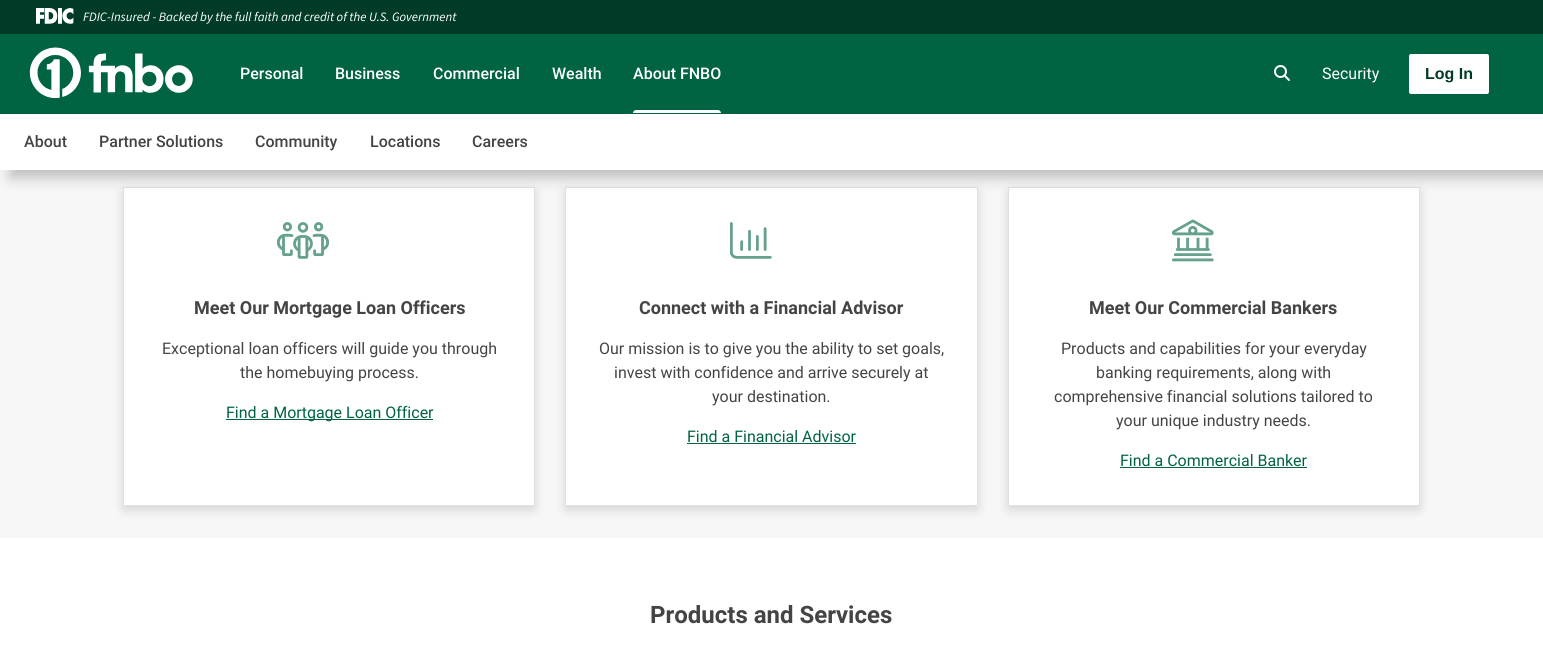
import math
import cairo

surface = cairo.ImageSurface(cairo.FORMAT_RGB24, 1543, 646)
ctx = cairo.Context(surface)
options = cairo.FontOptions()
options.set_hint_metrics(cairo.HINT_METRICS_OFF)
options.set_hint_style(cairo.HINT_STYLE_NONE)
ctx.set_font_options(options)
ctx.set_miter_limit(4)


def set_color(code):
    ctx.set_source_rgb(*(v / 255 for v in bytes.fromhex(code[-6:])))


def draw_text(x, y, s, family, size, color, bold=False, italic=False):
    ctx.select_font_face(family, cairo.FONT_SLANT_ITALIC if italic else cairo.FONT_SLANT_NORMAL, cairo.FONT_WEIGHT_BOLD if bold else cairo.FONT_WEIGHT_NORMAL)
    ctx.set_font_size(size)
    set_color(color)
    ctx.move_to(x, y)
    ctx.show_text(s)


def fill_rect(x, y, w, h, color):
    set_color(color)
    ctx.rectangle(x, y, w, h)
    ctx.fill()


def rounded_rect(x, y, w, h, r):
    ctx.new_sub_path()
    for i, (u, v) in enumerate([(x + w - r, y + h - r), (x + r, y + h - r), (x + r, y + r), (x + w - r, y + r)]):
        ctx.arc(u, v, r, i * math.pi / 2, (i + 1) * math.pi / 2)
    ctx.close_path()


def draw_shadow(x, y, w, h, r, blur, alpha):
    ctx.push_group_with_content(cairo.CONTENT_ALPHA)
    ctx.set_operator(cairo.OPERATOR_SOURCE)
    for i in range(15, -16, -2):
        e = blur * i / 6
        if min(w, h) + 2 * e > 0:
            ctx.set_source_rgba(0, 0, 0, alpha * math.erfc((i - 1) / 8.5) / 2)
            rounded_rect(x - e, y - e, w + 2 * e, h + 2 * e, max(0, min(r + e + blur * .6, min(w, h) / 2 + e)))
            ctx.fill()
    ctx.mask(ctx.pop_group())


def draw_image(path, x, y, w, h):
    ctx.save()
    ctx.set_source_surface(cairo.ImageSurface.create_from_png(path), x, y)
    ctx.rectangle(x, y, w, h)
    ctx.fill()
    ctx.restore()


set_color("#ffffff")
ctx.paint()
fill_rect(0, 170, 1543, 368, "#f7f7f7")
set_color("#000000")
draw_shadow(124, 192, 410, 317, 0, 6, 0.16)
set_color("#ffffff")
ctx.rectangle(123.5, 187.5, 411, 318)
ctx.fill_preserve()
set_color("#e0e0e0")
ctx.set_line_width(1)
ctx.stroke()
set_color("#000000")
draw_shadow(566, 192, 411, 317, 0, 6, 0.16)
set_color("#ffffff")
ctx.rectangle(565.5, 187.5, 412, 318)
ctx.fill_preserve()
set_color("#e0e0e0")
ctx.stroke()
set_color("#000000")
draw_shadow(1009, 192, 410, 317, 0, 6, 0.16)
set_color("#ffffff")
ctx.rectangle(1008.5, 187.5, 411, 318)
ctx.fill_preserve()
set_color("#e0e0e0")
ctx.stroke()
set_color("#525252")
draw_shadow(10, 10, 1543, 168, 0, 7, 0.34)
fill_rect(0, 0, 1543, 34, "#003b27")
draw_image("assets/img1.png", 36, 8, 38, 16)
draw_text(83, 21, "FDIC-Insured - Backed by the full faith and credit of the U.S. Government", "Source Sans 3", 12.8, "#ffffff", italic=True)
set_color("#000000")
draw_shadow(1, 39, 1541, 78, 0, 6, 0.16)
fill_rect(0, 34, 1543, 80, "#006341")
draw_image("assets/img2.png", 29, 47, 164, 51)
draw_text(633, 79, "About FNBO", "Roboto Medium", 16, "#ffffff")
ctx.new_path()
ctx.move_to(636, 110)
ctx.line_to(718, 110)
ctx.curve_to(719.5, 110, 721, 111.5, 721, 113)
ctx.line_to(633, 113)
ctx.curve_to(633, 111.5, 634.5, 110, 636, 110)
ctx.close_path()
ctx.fill()
fill_rect(0, 114, 1543, 56, "#ffffff")
draw_text(24, 147, "About", "Roboto Medium", 16, "#444444")
draw_text(99, 147, "Partner Solutions", "Roboto Medium", 16, "#444444")
draw_text(255, 147, "Community", "Roboto Medium", 16, "#444444")
draw_text(370, 147, "Locations", "Roboto Medium", 16, "#444444")
draw_text(472, 147, "Careers", "Roboto Medium", 16, "#444444")
draw_text(240, 79, "Personal", "Roboto Medium", 16, "#ffffff")
draw_text(335, 79, "Business", "Roboto Medium", 16, "#ffffff")
draw_text(433, 79, "Commercial", "Roboto Medium", 16, "#ffffff")
draw_text(552, 79, "Wealth", "Roboto Medium", 16, "#ffffff")
draw_image("assets/img3.png", 1274, 65, 16, 16)
draw_text(1322, 79, "Security", "Roboto", 16, "#ffffff")
rounded_rect(1409, 54, 80, 40, 2)
ctx.fill()
draw_text(1425, 79, "Log In", "Liberation Sans", 16, "#003b27", bold=True)
draw_image("assets/img4.png", 277, 222, 52, 37)
draw_image("assets/img5.png", 277, 222, 52, 37)
draw_text(194, 314, "Meet Our Mortgage Loan Officers", "Roboto", 18, "#444444", bold=True)
draw_text(162, 354, "Exceptional loan officers will guide you through", "Roboto", 16, "#444444")
draw_text(240, 378, "the homebuying process.", "Roboto", 16, "#444444")
fill_rect(226, 419, 207, 1, "#006341")
draw_text(226, 418, "Find a Mortgage Loan Officer", "Roboto", 16, "#006341")
draw_image("assets/img6.png", 730, 222, 42, 37)
draw_image("assets/img7.png", 730, 222, 42, 37)
draw_text(639, 314, "Connect with a Financial Advisor", "Roboto", 18, "#444444", bold=True)
draw_text(599, 354, "Our mission is to give you the ability to set goals,", "Roboto", 16, "#444444")
draw_text(614, 378, "invest with confidence and arrive securely at", "Roboto", 16, "#444444")
draw_text(712, 402, "your destination.", "Roboto", 16, "#444444")
draw_text(687, 442, "Find a Financial Advisor", "Roboto", 16, "#006341")
fill_rect(687, 443, 169, 1, "#006341")
draw_image("assets/img8.png", 1172, 219, 42, 43)
draw_image("assets/img9.png", 1172, 219, 42, 42)
draw_text(1089, 314, "Meet Our Commercial Bankers", "Roboto", 18, "#444444", bold=True)
draw_text(1061, 354, "Products and capabilities for your everyday", "Roboto", 16, "#444444")
draw_text(1096, 378, "banking requirements, along with", "Roboto", 16, "#444444")
draw_text(1054, 402, "comprehensive financial solutions tailored to", "Roboto", 16, "#444444")
draw_text(1116, 426, "your unique industry needs.", "Roboto", 16, "#444444")
draw_text(1120, 466, "Find a Commercial Banker", "Roboto", 16, "#006341")
fill_rect(1120, 467, 187, 1, "#006341")
draw_text(650, 623, "Products and Services", "Roboto", 24, "#444444", bold=True)
surface.write_to_png("output.png")
